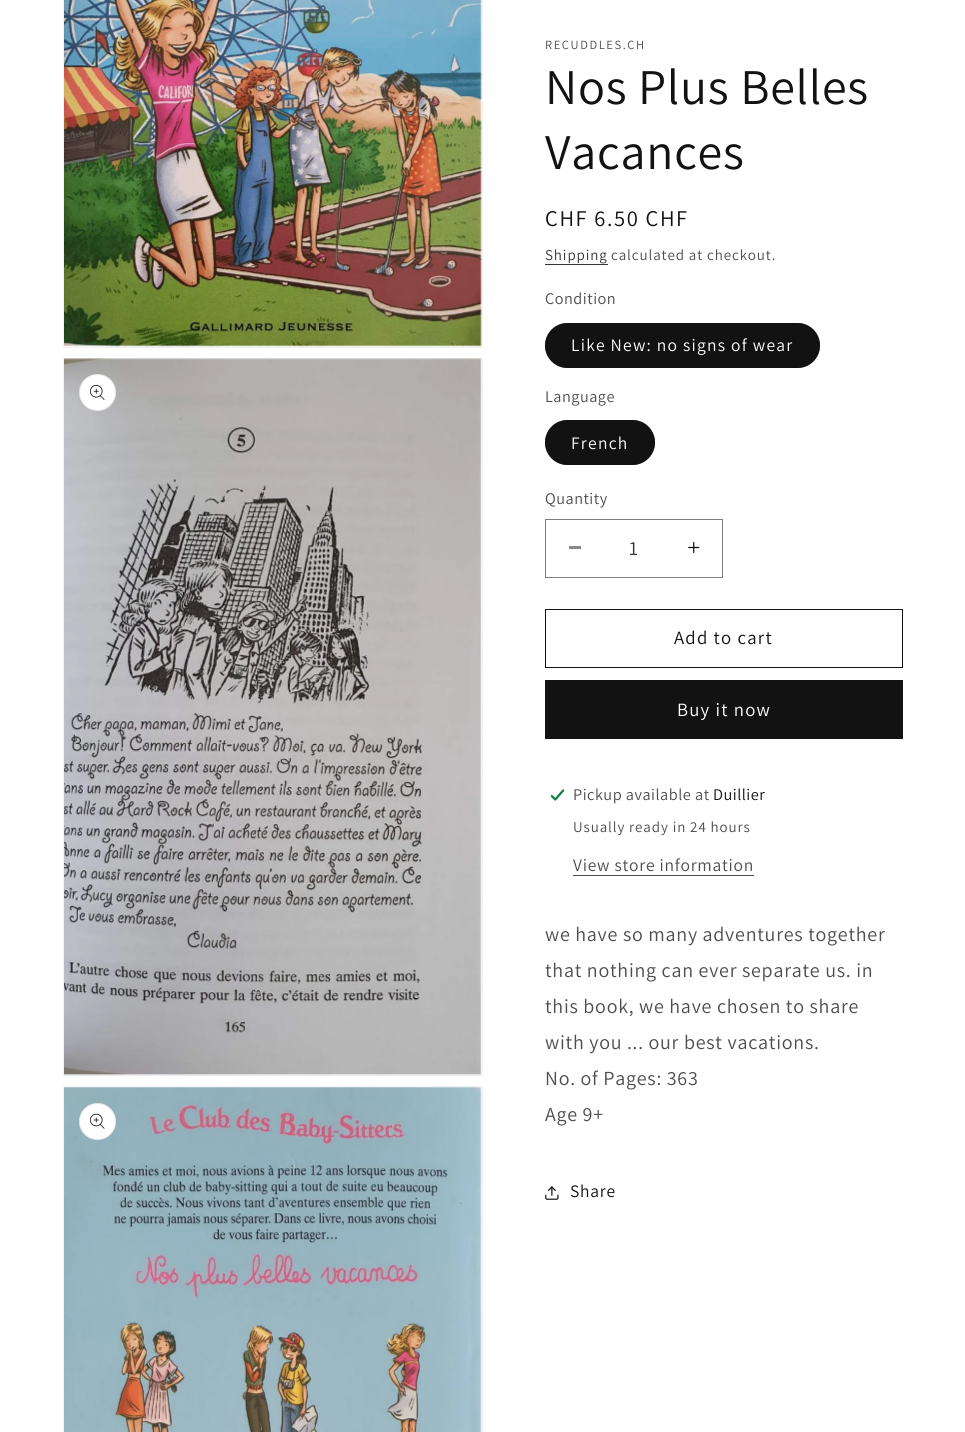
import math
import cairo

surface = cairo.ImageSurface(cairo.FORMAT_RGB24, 965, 1432)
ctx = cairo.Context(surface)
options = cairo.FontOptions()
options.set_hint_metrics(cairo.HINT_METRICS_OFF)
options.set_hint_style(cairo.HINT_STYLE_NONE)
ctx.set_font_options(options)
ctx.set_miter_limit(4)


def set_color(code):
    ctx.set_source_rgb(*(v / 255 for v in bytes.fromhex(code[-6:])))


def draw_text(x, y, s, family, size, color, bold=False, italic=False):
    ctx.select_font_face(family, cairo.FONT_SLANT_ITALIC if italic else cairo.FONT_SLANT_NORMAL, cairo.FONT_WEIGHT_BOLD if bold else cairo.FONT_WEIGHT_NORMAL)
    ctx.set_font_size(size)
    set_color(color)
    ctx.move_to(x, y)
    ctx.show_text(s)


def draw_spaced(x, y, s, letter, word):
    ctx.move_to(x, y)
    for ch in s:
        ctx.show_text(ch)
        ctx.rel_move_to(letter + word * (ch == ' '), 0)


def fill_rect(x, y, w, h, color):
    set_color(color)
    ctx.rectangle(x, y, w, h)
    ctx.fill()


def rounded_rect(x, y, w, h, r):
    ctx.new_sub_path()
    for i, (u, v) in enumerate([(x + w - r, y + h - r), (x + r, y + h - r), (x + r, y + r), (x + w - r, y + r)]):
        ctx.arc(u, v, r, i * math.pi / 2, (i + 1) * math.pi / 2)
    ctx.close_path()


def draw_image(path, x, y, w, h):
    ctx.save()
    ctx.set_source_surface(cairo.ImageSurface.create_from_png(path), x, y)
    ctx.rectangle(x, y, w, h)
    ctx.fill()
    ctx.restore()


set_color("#ffffff")
ctx.paint()
ctx.rectangle(63.5, -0.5, 419, 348)
set_color("#f3f3f3")
ctx.set_line_width(1)
ctx.stroke()
draw_image("assets/img1.png", 64, 0, 418, 347)
ctx.rectangle(63.5, 358.5, 419, 717)
ctx.stroke()
draw_image("assets/img2.png", 64, 358, 418, 718)
set_color("#ffffff")
ctx.arc(97.5, 392.5, 18.5, 0, 2 * math.pi)
ctx.fill()
ctx.arc(97.5, 392.5, 18, 0, 2 * math.pi)
ctx.set_source_rgba(0.071, 0.071, 0.071, 0.1)
ctx.stroke()
draw_image("assets/img3.png", 90, 385, 15, 15)
ctx.rectangle(63.5, 1086.5, 419, 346)
set_color("#f3f3f3")
ctx.stroke()
draw_image("assets/img4.png", 64, 1087, 418, 345)
set_color("#ffffff")
ctx.arc(97.5, 1121.5, 18.5, 0, 2 * math.pi)
ctx.fill()
ctx.arc(97.5, 1121.5, 18, 0, 2 * math.pi)
ctx.set_source_rgba(0.071, 0.071, 0.071, 0.1)
ctx.stroke()
draw_image("assets/img5.png", 90, 1113, 15, 16)
ctx.select_font_face("Assistant")
ctx.set_font_size(12.5)
set_color("#4d4d4d")
draw_spaced(545, 49, "RECUDDLES.CH", 1.6, 0)
ctx.set_font_size(50)
set_color("#121212")
draw_spaced(545, 104, "Nos Plus Belles", 0.75, 0)
draw_spaced(545, 169, "Vacances", 0.75, 0)
ctx.set_font_size(22.5)
draw_spaced(545, 226, "CHF 6.50 CHF", 1.6, 0)
ctx.set_font_size(15)
set_color("#363636")
draw_spaced(545, 260, "Shipping", 0.9, 0)
fill_rect(545, 264, 63, 1, "#363636")
set_color("#4d4d4d")
draw_spaced(611, 260, "calculated at checkout.", 0.9, 0)
ctx.set_font_size(16.25)
draw_spaced(545, 304, "Condition", 0.5, 0)
set_color("#121212")
rounded_rect(545, 323, 275, 45, 22.5)
ctx.fill()
rounded_rect(545.5, 323.5, 274, 44, 22)
ctx.set_source_rgba(0.071, 0.071, 0.071, 0.55)
ctx.stroke()
ctx.set_font_size(17.5)
set_color("#ffffff")
draw_spaced(571, 351, "Like New: no signs of wear", 1.25, 0)
ctx.set_font_size(16.25)
set_color("#4d4d4d")
draw_spaced(545, 402, "Language", 0.5, 0)
set_color("#121212")
rounded_rect(545, 420, 110, 45, 22.5)
ctx.fill()
rounded_rect(545.5, 420.5, 109, 44, 22)
ctx.set_source_rgba(0.071, 0.071, 0.071, 0.55)
ctx.stroke()
ctx.set_font_size(17.5)
set_color("#ffffff")
draw_spaced(571, 449, "French", 1.25, 0)
ctx.set_font_size(16.25)
set_color("#4d4d4d")
draw_spaced(545, 504, "Quantity", 0.5, 0)
fill_rect(569, 546, 12, 3, "#898989")
draw_image("assets/img6.png", 688, 541, 12, 13)
ctx.rectangle(545.5, 519.5, 177, 58)
set_color("#7d7d7d")
ctx.stroke()
draw_text(629, 555, "1", "Assistant", 20, "#363636")
ctx.rectangle(545.5, 609.5, 357, 58)
set_color("#121212")
ctx.stroke()
ctx.set_font_size(18.75)
draw_spaced(674, 644, "Add to cart", 1.25, 0)
fill_rect(545, 680, 358, 59, "#121212")
set_color("#ffffff")
draw_spaced(677, 716, "Buy it now", 1.25, 0)
draw_image("assets/img7.png", 550, 788, 15, 14)
ctx.set_font_size(16.25)
set_color("#4d4d4d")
draw_spaced(573, 800, "Pickup available at", 0.5, 0)
set_color("#121212")
draw_spaced(713, 800, "Duillier", 0.5, 0)
ctx.set_font_size(15)
set_color("#4d4d4d")
draw_spaced(573, 832, "Usually ready in 24 hours", 0.9, 0)
ctx.set_font_size(17.5)
draw_spaced(573, 871, "View store information", 0.75, 0)
fill_rect(573, 875, 181, 1, "#4d4d4d")
ctx.set_font_size(20)
draw_spaced(545, 941, "we have so many adventures together", 0.75, 0)
draw_spaced(545, 977, "that nothing can ever separate us. in", 0.75, 0)
draw_spaced(545, 1013, "this book, we have chosen to share", 0.75, 0)
draw_spaced(545, 1049, "with you ... our best vacations.", 0.75, 0)
draw_spaced(545, 1085, "No. of Pages: 363", 0.75, 0)
draw_spaced(545, 1121, "Age 9+", 0.75, 0)
draw_image("assets/img8.png", 545, 1186, 14, 14)
ctx.set_font_size(17.5)
set_color("#121212")
draw_spaced(570, 1197, "Share", 0.75, 0)
surface.write_to_png("output.png")
